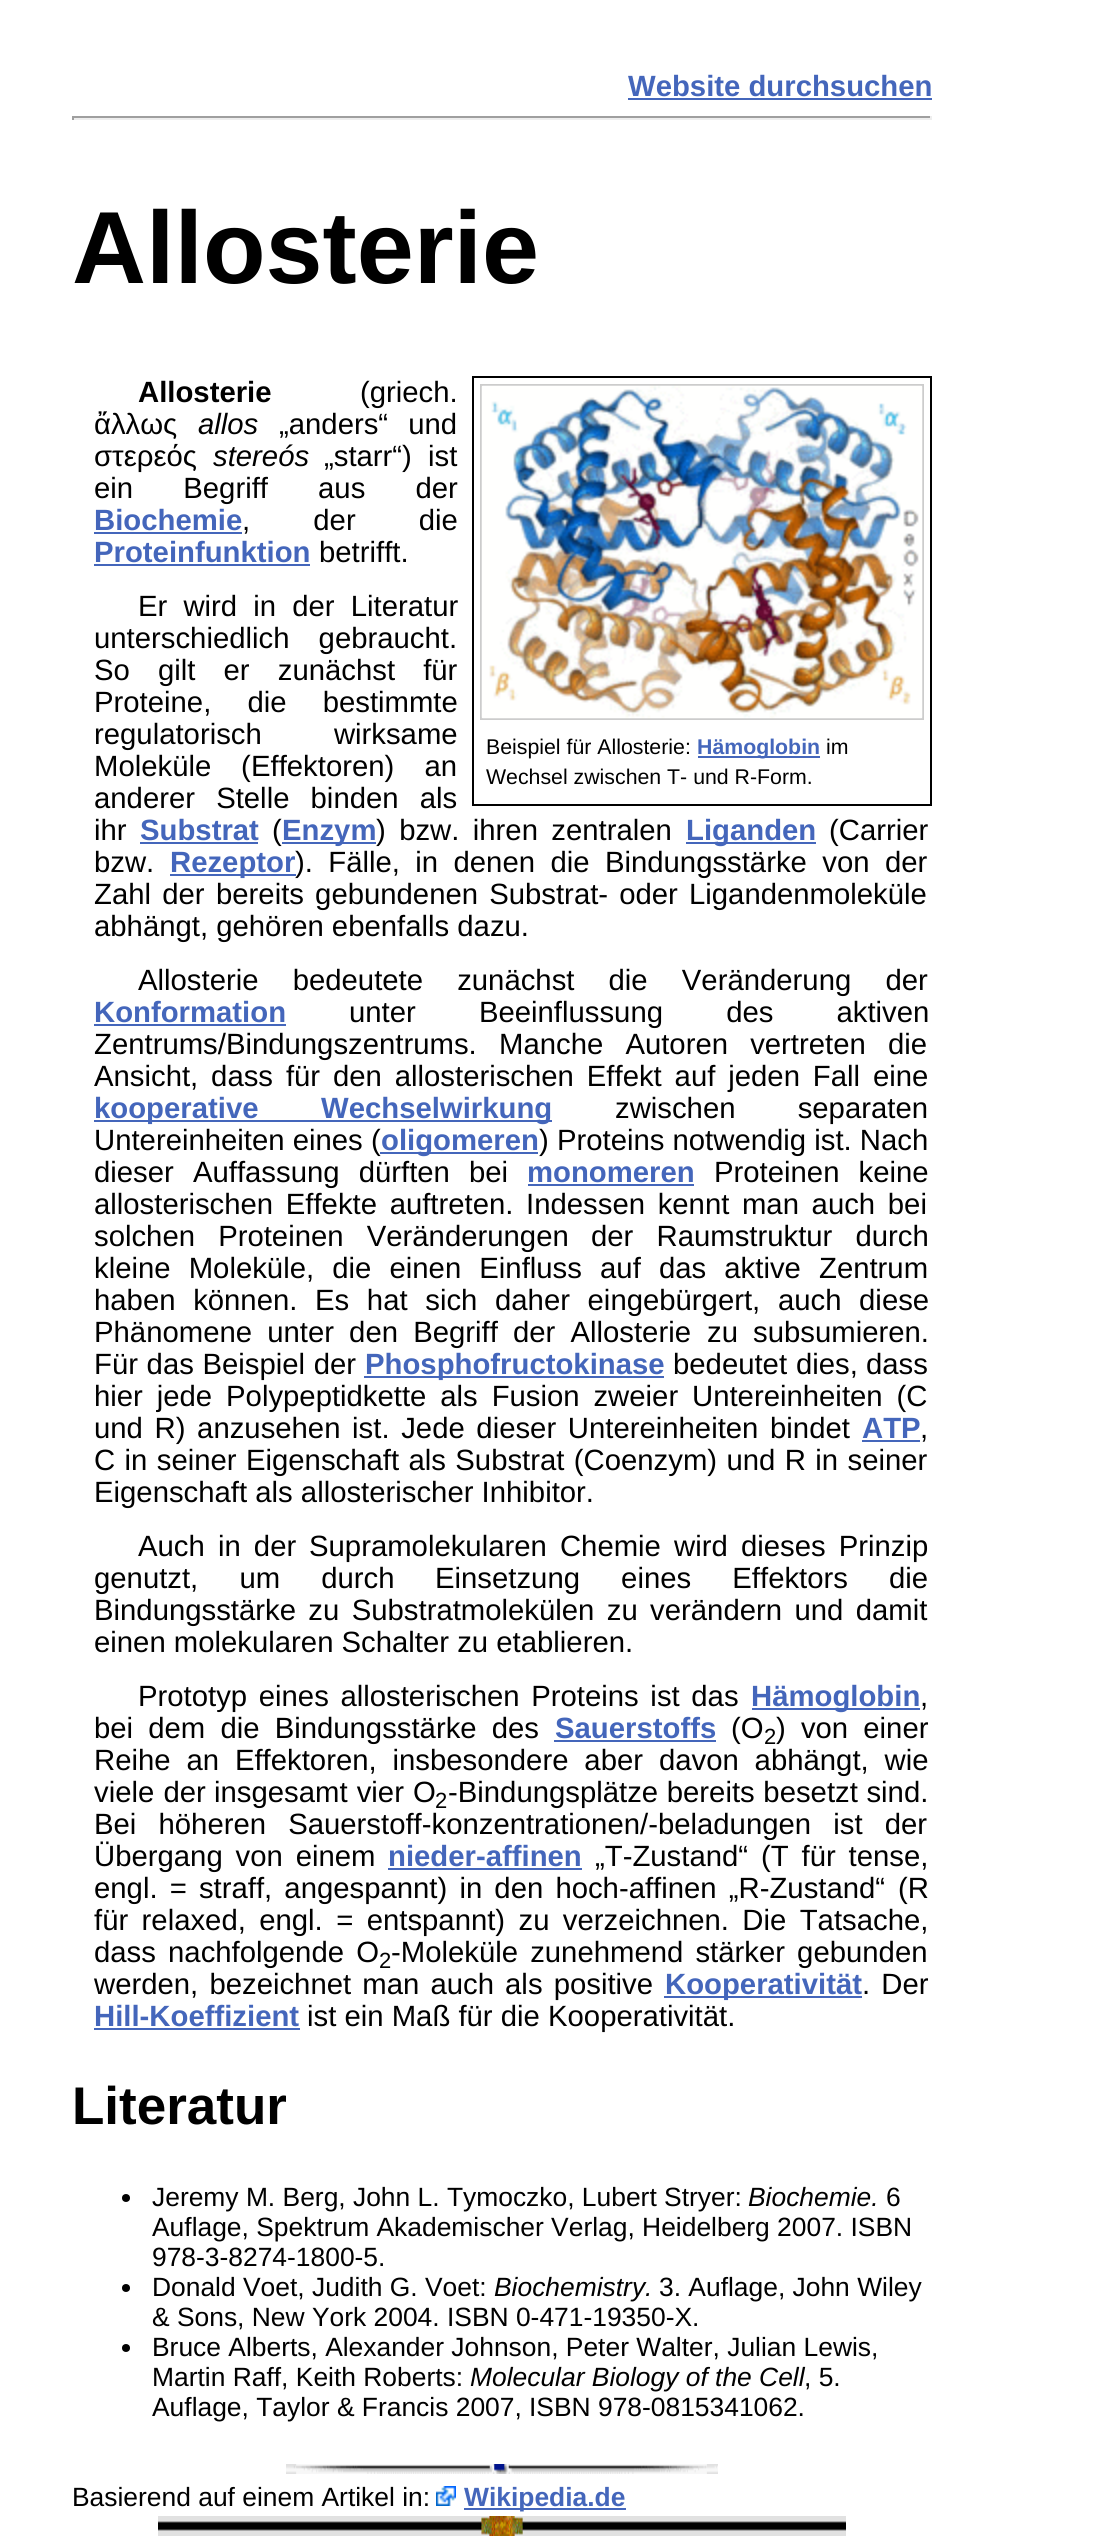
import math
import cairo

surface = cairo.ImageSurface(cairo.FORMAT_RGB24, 1093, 2543)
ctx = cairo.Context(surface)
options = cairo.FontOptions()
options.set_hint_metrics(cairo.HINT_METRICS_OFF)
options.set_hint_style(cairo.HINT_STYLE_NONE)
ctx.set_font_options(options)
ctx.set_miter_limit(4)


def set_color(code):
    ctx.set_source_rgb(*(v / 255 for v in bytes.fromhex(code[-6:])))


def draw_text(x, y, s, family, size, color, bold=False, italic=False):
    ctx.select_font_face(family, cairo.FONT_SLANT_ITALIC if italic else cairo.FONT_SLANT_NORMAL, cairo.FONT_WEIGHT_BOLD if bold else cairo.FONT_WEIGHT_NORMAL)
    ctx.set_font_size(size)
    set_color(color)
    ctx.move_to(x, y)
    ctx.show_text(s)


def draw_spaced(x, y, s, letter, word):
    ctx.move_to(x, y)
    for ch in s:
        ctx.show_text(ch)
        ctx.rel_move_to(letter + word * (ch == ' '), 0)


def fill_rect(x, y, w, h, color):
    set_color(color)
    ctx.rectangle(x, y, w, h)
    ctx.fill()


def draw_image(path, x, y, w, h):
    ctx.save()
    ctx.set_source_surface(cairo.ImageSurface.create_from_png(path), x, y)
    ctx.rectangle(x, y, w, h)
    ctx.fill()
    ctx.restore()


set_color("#ffffff")
ctx.paint()
draw_text(628, 96, "Website durchsuchen", "Liberation Sans", 29.3, "#4466bb", bold=True)
fill_rect(628, 98, 304, 2, "#4466bb")
fill_rect(72, 116, 860, 2, "#9f9f9f")
fill_rect(930, 116, 2, 4, "#eeeeee")
fill_rect(72, 118, 860, 2, "#eeeeee")
fill_rect(72, 116, 2, 4, "#9f9f9f")
draw_text(72, 283, "Allosterie", "Liberation Sans", 102.5, "#000000", bold=True)
draw_text(138, 402, "Allosterie", "Liberation Sans", 29.3, "#000000", bold=True)
draw_text(360, 402, "(griech.", "Liberation Sans", 29.3, "#000000")
draw_text(94, 434, "ἄλλως", "Liberation Sans", 29.3, "#000000")
draw_text(198, 434, "allos", "Liberation Sans", 29.3, "#000000", italic=True)
ctx.select_font_face("Liberation Sans")
draw_spaced(279, 434, "„anders“ und", 0, 12)
draw_text(94, 466, "στερεός", "Liberation Sans", 29.3, "#000000")
draw_text(213, 466, "stereós", "Liberation Sans", 29.3, "#000000", italic=True)
ctx.select_font_face("Liberation Sans")
draw_spaced(324, 466, "„starr“) ist", 0, 8)
draw_spaced(94, 498, "ein Begriff aus der", 0, 42)
draw_text(94, 530, "Biochemie", "Liberation Sans", 29.3, "#4466bb", bold=True)
fill_rect(94, 532, 148, 2, "#4466bb")
ctx.select_font_face("Liberation Sans")
set_color("#000000")
draw_spaced(242, 530, ", der die", 0, 55)
draw_text(94, 562, "Proteinfunktion", "Liberation Sans", 29.3, "#4466bb", bold=True)
fill_rect(94, 564, 216, 2, "#4466bb")
draw_text(319, 562, "betrifft.", "Liberation Sans", 29.3, "#000000")
draw_spaced(138, 616, "Er wird in der Literatur", 0, 8)
draw_spaced(94, 648, "unterschiedlich gebraucht.", 0, 21)
draw_spaced(94, 680, "So gilt er zunächst für", 0, 20)
draw_spaced(94, 712, "Proteine, die bestimmte", 0, 28)
draw_spaced(94, 744, "regulatorisch wirksame", 0, 64)
draw_text(94, 776, "Moleküle", "Liberation Sans", 29.3, "#000000")
draw_text(241, 776, "(", "Liberation Sans", 29.3, "#000000")
draw_spaced(251, 776, "Effektoren) an", 0, 22)
draw_spaced(94, 808, "anderer Stelle binden als", 0, 13)
draw_text(94, 840, "ihr", "Liberation Sans", 29.3, "#000000")
draw_text(140, 840, "Substrat", "Liberation Sans", 29.3, "#4466bb", bold=True)
fill_rect(140, 842, 118, 2, "#4466bb")
draw_text(272, 840, "(", "Liberation Sans", 29.3, "#000000")
fill_rect(282, 842, 94, 2, "#4466bb")
draw_text(282, 840, "Enzym", "Liberation Sans", 29.3, "#4466bb", bold=True)
ctx.select_font_face("Liberation Sans")
set_color("#000000")
draw_spaced(376, 840, ") bzw. ihren zentralen", 0, 5.25)
fill_rect(686, 842, 130, 2, "#4466bb")
draw_text(686, 840, "Liganden", "Liberation Sans", 29.3, "#4466bb", bold=True)
draw_text(829, 840, "(Carrier", "Liberation Sans", 29.3, "#000000")
draw_text(94, 872, "bzw.", "Liberation Sans", 29.3, "#000000")
fill_rect(170, 874, 126, 2, "#4466bb")
draw_text(170, 872, "Rezeptor", "Liberation Sans", 29.3, "#4466bb", bold=True)
ctx.select_font_face("Liberation Sans")
set_color("#000000")
draw_spaced(295, 872, "). Fälle, in denen die Bindungsstärke von der", 0, 7.25)
draw_spaced(94, 904, "Zahl der", 0, 3)
draw_spaced(216, 904, "bereits gebundenen Substrat- oder Ligandenmoleküle", 0, 3)
draw_text(94, 936, "abhängt, gehören ebenfalls dazu.", "Liberation Sans", 29.3, "#000000")
ctx.rectangle(473, 377, 458, 428)
ctx.stroke()
ctx.rectangle(481, 385, 442, 334)
set_color("#cccccc")
ctx.stroke()
draw_image("assets/img1.png", 481, 385, 442, 334)
draw_text(486, 754, "Beispiel für Allosterie:", "Liberation Sans", 21.3, "#000000")
fill_rect(698, 756, 122, 2, "#4466bb")
draw_text(697, 754, "Hämoglobin", "Liberation Sans", 21.3, "#4466bb", bold=True)
draw_text(826, 754, "im", "Liberation Sans", 21.3, "#000000")
draw_text(486, 784, "Wechsel zwischen T- und R-Form.", "Liberation Sans", 21.3, "#000000")
ctx.set_font_size(29.3)
draw_spaced(138, 990, "Allosterie bedeutete zunächst die Veränderung der", 0, 26)
draw_text(94, 1022, "Konformation", "Liberation Sans", 29.3, "#4466bb", bold=True)
fill_rect(94, 1024, 192, 2, "#4466bb")
ctx.select_font_face("Liberation Sans")
set_color("#000000")
draw_spaced(349, 1022, "unter Beeinflussung des aktiven", 0, 55)
draw_text(94, 1054, "Zentrums/Bindungszentrums.", "Liberation Sans", 29.3, "#000000")
draw_spaced(499, 1054, "Manche Autoren vertreten die", 0, 14)
draw_spaced(94, 1086, "Ansicht, dass für den allosterischen Effekt auf jeden Fall eine", 0, 4.75)
fill_rect(94, 1120, 458, 2, "#4466bb")
draw_text(94, 1118, "kooperative", "Liberation Sans", 29.3, "#4466bb", bold=True)
draw_text(321, 1118, "Wechselwirkung", "Liberation Sans", 29.3, "#4466bb", bold=True)
ctx.select_font_face("Liberation Sans")
set_color("#000000")
draw_spaced(615, 1118, "zwischen separaten", 0, 54)
draw_text(94, 1150, "Untereinheiten eines (", "Liberation Sans", 29.3, "#000000")
fill_rect(380, 1152, 158, 2, "#4466bb")
draw_text(381, 1150, "oligomeren", "Liberation Sans", 29.3, "#4466bb", bold=True)
draw_text(539, 1150, ") Proteins notwendig ist. Nach", "Liberation Sans", 29.3, "#000000")
draw_spaced(94, 1182, "dieser Auffassung dürften", 0, 11)
draw_text(469, 1182, "bei", "Liberation Sans", 29.3, "#000000")
draw_text(527, 1182, "monomeren", "Liberation Sans", 29.3, "#4466bb", bold=True)
fill_rect(528, 1184, 166, 2, "#4466bb")
ctx.select_font_face("Liberation Sans")
set_color("#000000")
draw_spaced(714, 1182, "Proteinen keine", 0, 11)
draw_spaced(94, 1214, "allosterischen Effekte auftreten. Indessen kennt man auch bei", 0, 4.5)
draw_spaced(94, 1246, "solchen Proteinen Veränderungen", 0, 15)
draw_spaced(591, 1246, "der Raumstruktur durch", 0, 15)
draw_spaced(94, 1278, "kleine Moleküle, die einen Einfluss auf das aktive Zentrum", 0, 10)
draw_spaced(94, 1310, "haben können. Es hat sich daher eingebürgert, auch diese", 0, 9.5)
draw_spaced(94, 1342, "Phänomene unter den Begriff der Allosterie", 0, 7)
draw_spaced(707, 1342, "zu subsumieren.", 0, 7)
draw_spaced(94, 1374, "Für das Beispiel der", 0, 0.5)
fill_rect(364, 1376, 300, 2, "#4466bb")
draw_text(365, 1374, "Phosphofructokinase", "Liberation Sans", 29.3, "#4466bb", bold=True)
draw_text(673, 1374, "bedeutet", "Liberation Sans", 29.3, "#000000")
draw_text(796, 1374, "dies, dass", "Liberation Sans", 29.3, "#000000")
draw_spaced(94, 1406, "hier jede Polypeptidkette als Fusion zweier Untereinheiten (C", 0, 5.75)
draw_spaced(94, 1438, "und R) anzusehen ist. Jede dieser Untereinheiten bindet", 0, 3.5)
draw_text(862, 1438, "ATP", "Liberation Sans", 29.3, "#4466bb", bold=True)
fill_rect(862, 1440, 58, 2, "#4466bb")
draw_text(920, 1438, ",", "Liberation Sans", 29.3, "#000000")
draw_spaced(94, 1470, "C in seiner Eigenschaft als Substrat (Coenzym) und R in seiner", 0, 1.25)
draw_text(94, 1502, "Eigenschaft als allosterischer Inhibitor.", "Liberation Sans", 29.3, "#000000")
draw_spaced(138, 1556, "Auch in der", 0, 5)
draw_spaced(309, 1556, "Supramolekularen Chemie wird dieses Prinzip", 0, 5)
draw_spaced(94, 1588, "genutzt, um durch", 0, 33)
draw_spaced(435, 1588, "Einsetzung eines Effektors die", 0, 33)
draw_spaced(94, 1620, "Bindungsstärke zu Substratmolekülen zu verändern und damit", 0, 4.25)
draw_text(94, 1652, "einen molekularen Schalter zu etablieren.", "Liberation Sans", 29.3, "#000000")
draw_spaced(138, 1706, "Prototyp eines allosterischen Proteins ist das", 0, 3.5)
fill_rect(752, 1708, 168, 2, "#4466bb")
draw_text(751, 1706, "Hämoglobin", "Liberation Sans", 29.3, "#4466bb", bold=True)
draw_text(920, 1706, ",", "Liberation Sans", 29.3, "#000000")
draw_spaced(94, 1738, "bei dem die Bindungsstärke des", 0, 7)
draw_text(555, 1738, "Sauerstoffs", "Liberation Sans", 29.3, "#4466bb", bold=True)
fill_rect(554, 1740, 162, 2, "#4466bb")
draw_text(731, 1738, "(O", "Liberation Sans", 29.3, "#000000")
draw_text(764, 1744, "2", "Liberation Sans", 22, "#000000")
ctx.set_font_size(29.3)
draw_spaced(776, 1738, ") von einer", 0, 7)
draw_spaced(94, 1770, "Reihe an Effektoren, insbesondere aber davon abhängt, wie", 0, 7.75)
draw_spaced(94, 1802, "viele der", 0, 1)
draw_spaced(214, 1802, "insgesamt vier O", 0, 1)
draw_text(435, 1808, "2", "Liberation Sans", 22, "#000000")
ctx.set_font_size(29.3)
draw_spaced(448, 1802, "-Bindungsplätze bereits besetzt sind.", 0, 0.5)
draw_spaced(94, 1834, "Bei höheren Sauerstoff-konzentrationen/-beladungen ist der", 0, 14)
draw_spaced(94, 1866, "Übergang von einem", 0, 4.75)
draw_text(388, 1866, "nieder-affinen", "Liberation Sans", 29.3, "#4466bb", bold=True)
fill_rect(388, 1868, 194, 2, "#4466bb")
ctx.select_font_face("Liberation Sans")
set_color("#000000")
draw_spaced(595, 1866, "„T-Zustand“ (T für tense,", 0, 4.75)
draw_spaced(94, 1898, "engl. = straff, angespannt) in den hoch-affinen „R-Zustand“", 0, 4)
draw_text(898, 1898, "(R", "Liberation Sans", 29.3, "#000000")
draw_spaced(94, 1930, "für relaxed, engl. = entspannt) zu verzeichnen. Die Tatsache,", 0, 5.25)
draw_spaced(94, 1962, "dass nachfolgende O", 0, 4)
draw_text(379, 1968, "2", "Liberation Sans", 22, "#000000")
ctx.set_font_size(29.3)
draw_spaced(391, 1962, "-Moleküle zunehmend stärker gebunden", 0, 4)
draw_spaced(94, 1994, "werden, bezeichnet man auch als positive", 0, 3)
fill_rect(664, 1996, 198, 2, "#4466bb")
draw_text(665, 1994, "Kooperativität", "Liberation Sans", 29.3, "#4466bb", bold=True)
ctx.select_font_face("Liberation Sans")
set_color("#000000")
draw_spaced(862, 1994, ". Der", 0, 3)
draw_text(94, 2026, "Hill-Koeffizient", "Liberation Sans", 29.3, "#4466bb", bold=True)
fill_rect(94, 2028, 206, 2, "#4466bb")
draw_text(307, 2026, "ist ein Maß für die Kooperativität.", "Liberation Sans", 29.3, "#000000")
draw_text(72, 2124, "Literatur", "Liberation Sans", 53, "#000000", bold=True)
ctx.new_path()
ctx.arc(126, 2198, 4, 0, 2 * math.pi)
ctx.fill()
draw_text(152, 2206, "Jeremy M. Berg, John L. Tymoczko, Lubert Stryer:", "Liberation Sans", 26.4, "#000000")
draw_text(748, 2206, "Biochemie.", "Liberation Sans", 26.4, "#000000", italic=True)
draw_text(886, 2206, "6", "Liberation Sans", 26.4, "#000000")
draw_text(152, 2236, "Auflage, Spektrum Akademischer Verlag, Heidelberg 2007. ISBN", "Liberation Sans", 26.4, "#000000")
draw_text(152, 2266, "978-3-8274-1800-5.", "Liberation Sans", 26.4, "#000000")
ctx.new_path()
ctx.arc(126, 2288, 4, 0, 2 * math.pi)
ctx.fill()
draw_text(152, 2296, "Donald Voet, Judith G. Voet:", "Liberation Sans", 26.4, "#000000")
draw_text(494, 2296, "Biochemistry.", "Liberation Sans", 26.4, "#000000", italic=True)
draw_text(659, 2296, "3. Auflage, John Wiley", "Liberation Sans", 26.4, "#000000")
draw_text(152, 2326, "& Sons, New York 2004. ISBN 0-471-19350-X.", "Liberation Sans", 26.4, "#000000")
ctx.new_path()
ctx.arc(126, 2348, 4, 0, 2 * math.pi)
ctx.fill()
draw_text(152, 2356, "Bruce Alberts, Alexander Johnson, Peter Walter, Julian Lewis,", "Liberation Sans", 26.4, "#000000")
draw_text(152, 2386, "Martin Raff, Keith Roberts:", "Liberation Sans", 26.4, "#000000")
draw_text(470, 2386, "Molecular Biology of the Cell", "Liberation Sans", 26.4, "#000000", italic=True)
draw_text(804, 2386, ", 5.", "Liberation Sans", 26.4, "#000000")
draw_text(152, 2416, "Auflage, Taylor & Francis 2007,", "Liberation Sans", 26.4, "#000000")
draw_text(529, 2416, "ISBN 978-0815341062.", "Liberation Sans", 26.4, "#000000")
fill_rect(286, 2464, 432, 10, "#e1e1e1")
draw_image("assets/img2.png", 286, 2464, 432, 10)
draw_text(72, 2506, "Basierend auf einem Artikel in:", "Liberation Sans", 26.4, "#000000")
draw_image("assets/img3.png", 436, 2486, 20, 20)
fill_rect(464, 2508, 162, 2, "#4466bb")
draw_text(464, 2506, "Wikipedia.de", "Liberation Sans", 26.4, "#4466bb", bold=True)
fill_rect(158, 2516, 688, 20, "#e1e1e1")
draw_image("assets/img4.png", 158, 2516, 688, 20)
surface.write_to_png("output.png")
